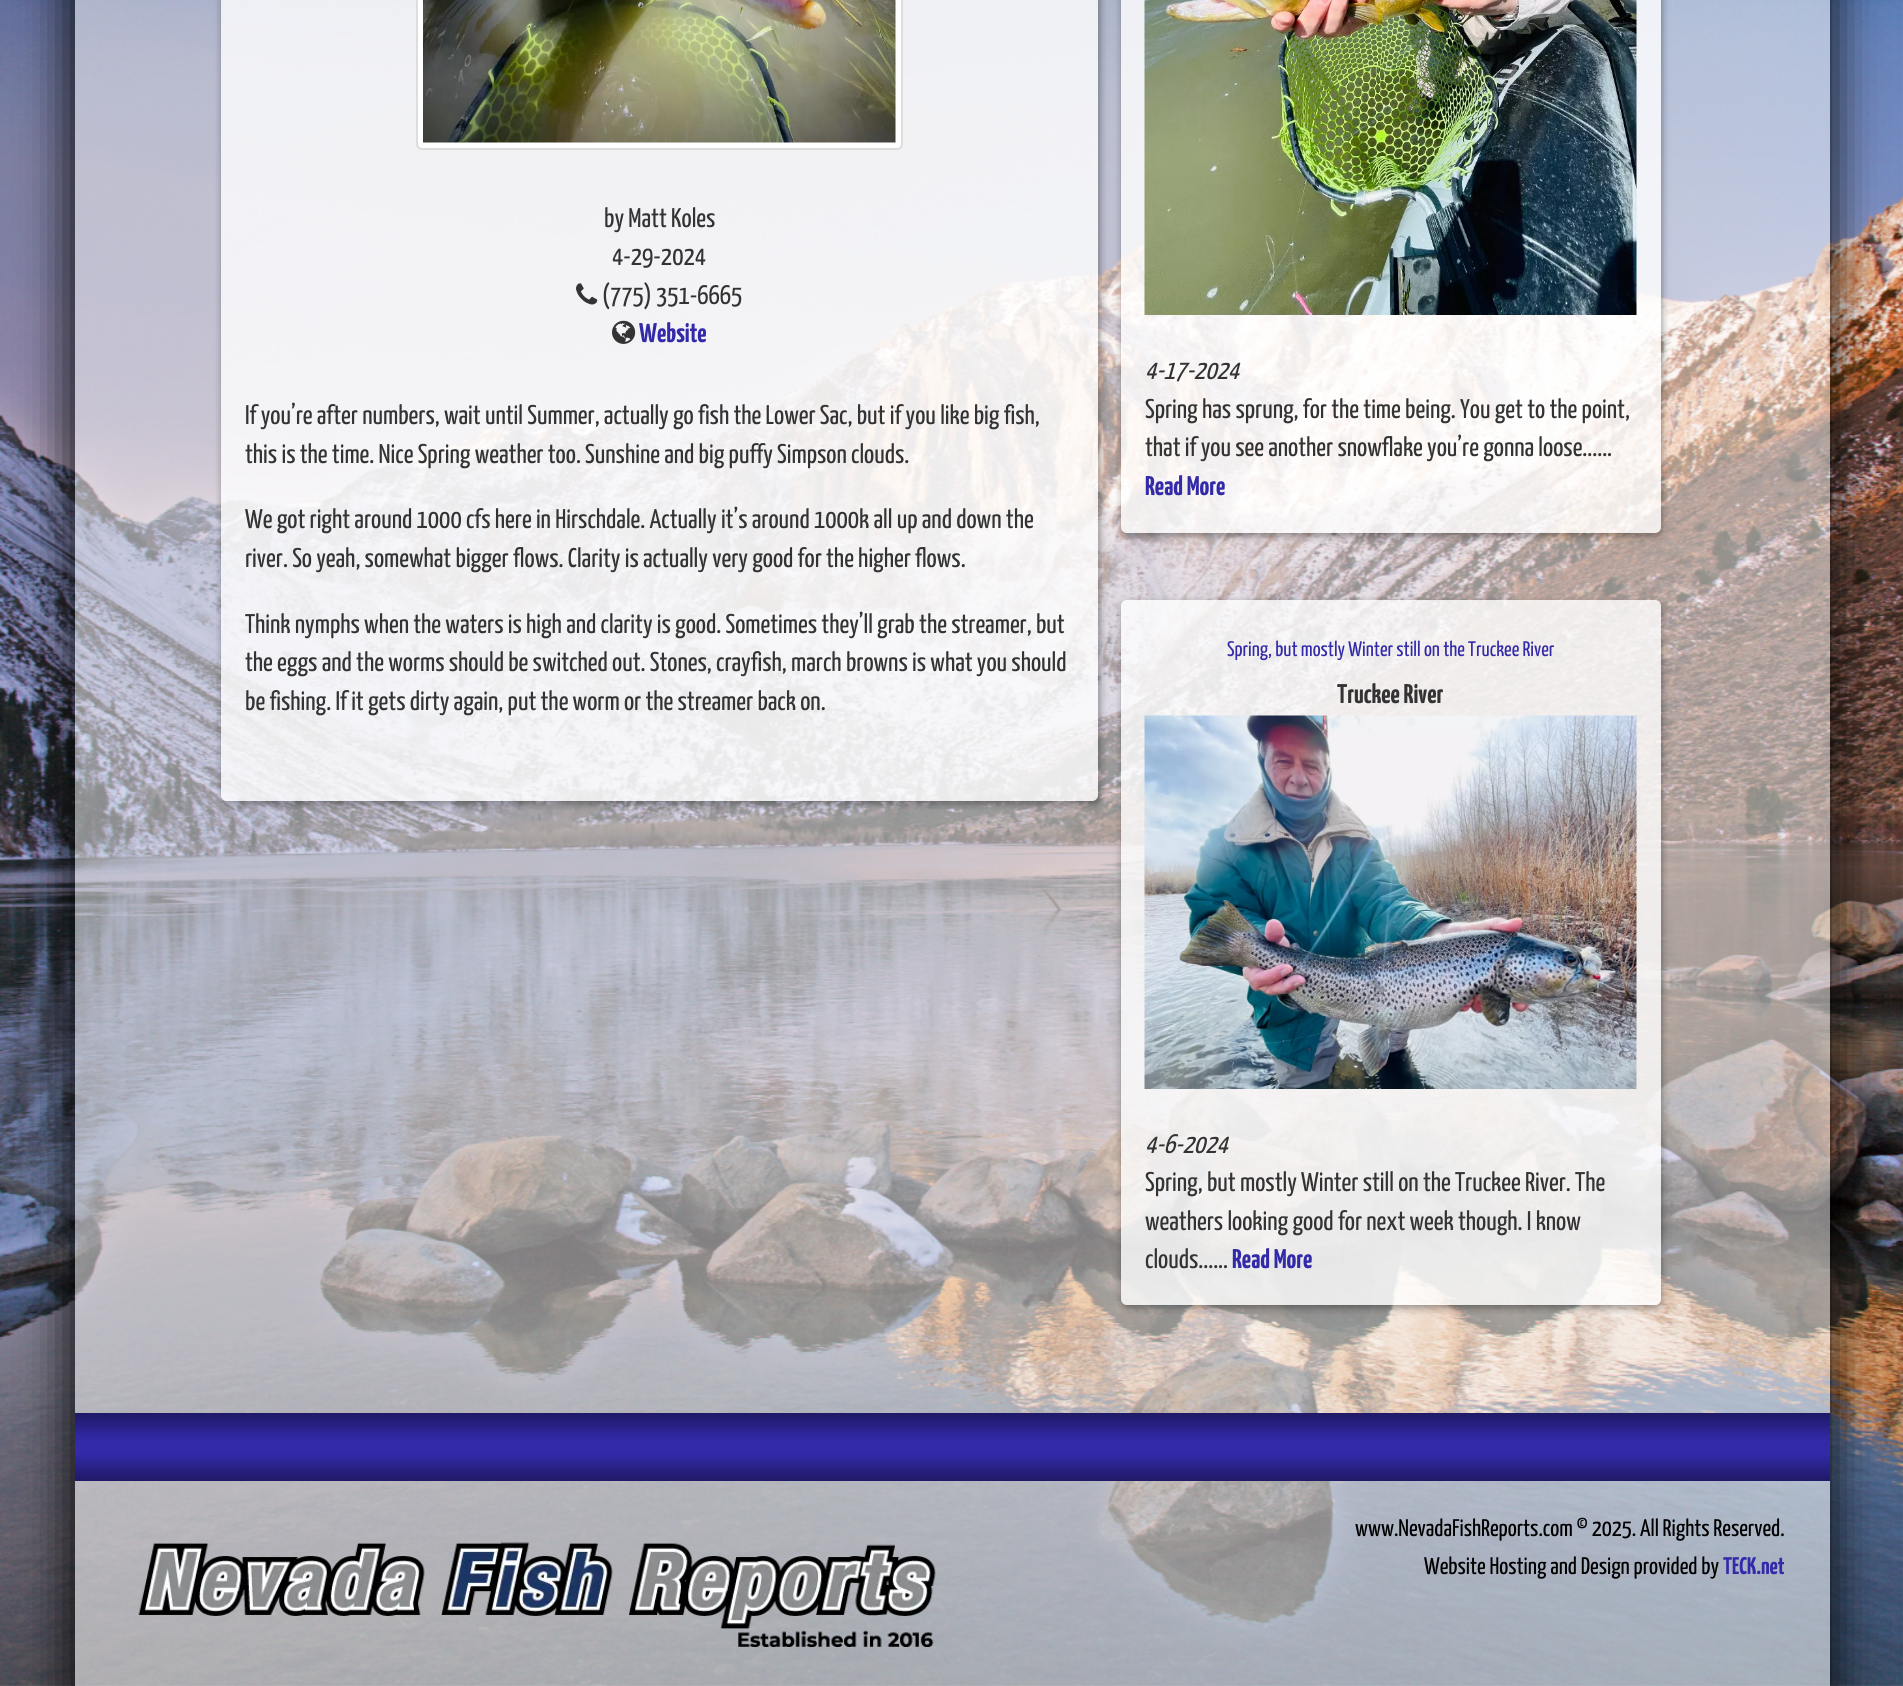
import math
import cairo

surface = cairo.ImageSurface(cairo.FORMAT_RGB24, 1903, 1686)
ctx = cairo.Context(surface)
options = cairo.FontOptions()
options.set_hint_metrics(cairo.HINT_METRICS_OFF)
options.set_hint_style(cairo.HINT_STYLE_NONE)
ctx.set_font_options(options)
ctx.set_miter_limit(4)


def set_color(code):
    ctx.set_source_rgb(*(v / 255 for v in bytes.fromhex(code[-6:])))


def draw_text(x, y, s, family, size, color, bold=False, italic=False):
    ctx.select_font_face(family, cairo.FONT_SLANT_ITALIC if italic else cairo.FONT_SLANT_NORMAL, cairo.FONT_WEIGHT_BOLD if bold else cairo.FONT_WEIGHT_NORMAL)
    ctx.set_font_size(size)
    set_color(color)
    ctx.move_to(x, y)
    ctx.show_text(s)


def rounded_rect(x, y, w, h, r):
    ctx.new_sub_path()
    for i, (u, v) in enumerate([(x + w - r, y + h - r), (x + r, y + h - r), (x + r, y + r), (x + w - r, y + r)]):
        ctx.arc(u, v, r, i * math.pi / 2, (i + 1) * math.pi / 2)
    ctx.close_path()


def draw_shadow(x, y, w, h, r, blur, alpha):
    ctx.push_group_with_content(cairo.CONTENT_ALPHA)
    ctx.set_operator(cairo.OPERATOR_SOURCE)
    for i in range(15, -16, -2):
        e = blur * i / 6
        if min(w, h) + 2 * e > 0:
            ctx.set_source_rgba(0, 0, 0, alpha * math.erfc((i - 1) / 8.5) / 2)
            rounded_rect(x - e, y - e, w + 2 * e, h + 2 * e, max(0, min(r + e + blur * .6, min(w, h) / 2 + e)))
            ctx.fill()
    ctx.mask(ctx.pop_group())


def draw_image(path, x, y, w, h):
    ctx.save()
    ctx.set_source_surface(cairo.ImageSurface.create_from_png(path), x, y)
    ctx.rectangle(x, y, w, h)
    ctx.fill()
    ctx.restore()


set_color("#ffffff")
ctx.paint()
draw_image("assets/img1.png", 0, 0, 1903, 1686)
ctx.save()
ctx.set_fill_rule(cairo.FILL_RULE_EVEN_ODD)
ctx.new_path()
ctx.move_to(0, 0)
ctx.line_to(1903, 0)
ctx.line_to(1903, 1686)
ctx.line_to(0, 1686)
ctx.close_path()
ctx.move_to(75, -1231)
ctx.line_to(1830, -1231)
ctx.line_to(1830, 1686)
ctx.line_to(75, 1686)
ctx.close_path()
ctx.clip()
set_color("#000000")
draw_shadow(66, -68, 1770, 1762, 0, 22.5, 0.8)
ctx.restore()
ctx.save()
ctx.set_fill_rule(cairo.FILL_RULE_EVEN_ODD)
ctx.new_path()
ctx.move_to(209, 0)
ctx.line_to(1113, 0)
ctx.line_to(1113, 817)
ctx.line_to(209, 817)
ctx.close_path()
ctx.move_to(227, -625)
ctx.line_to(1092, -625)
ctx.curve_to(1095.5, -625, 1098, -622.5, 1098, -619)
ctx.line_to(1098, 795)
ctx.curve_to(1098, 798.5, 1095.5, 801, 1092, 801)
ctx.line_to(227, 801)
ctx.curve_to(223.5, 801, 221, 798.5, 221, 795)
ctx.line_to(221, -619)
ctx.curve_to(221, -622.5, 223.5, -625, 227, -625)
ctx.close_path()
ctx.clip()
set_color("#060606")
draw_shadow(222, -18, 878, 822, 6, 4, 0.4)
ctx.restore()
ctx.set_source_rgba(1, 1, 1, 0.8)
rounded_rect(221, -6, 877, 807, 6)
ctx.fill()
set_color("#ffffff")
rounded_rect(417, -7, 485, 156, 5)
ctx.fill_preserve()
set_color("#dddddd")
ctx.stroke()
draw_image("assets/img2.png", 423, 0, 473, 143)
draw_text(604, 227, "by Matt Koles", "Yanone Kaffeesatz", 27, "#333333")
draw_text(612, 265, "4-29-2024", "Yanone Kaffeesatz", 27, "#333333")
draw_image("assets/img3.png", 576, 283, 22, 22)
draw_text(602, 304, "(775) 351-6665", "Yanone Kaffeesatz", 27, "#333333")
draw_image("assets/img4.png", 612, 320, 24, 24)
draw_text(639, 342, "Website", "Yanone Kaffeesatz", 27, "#322aa8", bold=True)
draw_text(245, 424, "If you’re after numbers, wait until Summer, actually go fish the Lower Sac, but if you like big fish,", "Yanone Kaffeesatz", 27, "#333333")
draw_text(245, 463, "this is the time. Nice Spring weather too. Sunshine and big puffy Simpson clouds.", "Yanone Kaffeesatz", 27, "#333333")
draw_text(245, 528, "We got right around 1000 cfs here in Hirschdale. Actually it’s around 1000k all up and down the", "Yanone Kaffeesatz", 27, "#333333")
draw_text(245, 567, "river. So yeah, somewhat bigger flows. Clarity is actually very good for the higher flows.", "Yanone Kaffeesatz", 27, "#333333")
draw_text(245, 633, "Think nymphs when the waters is high and clarity is good. Sometimes they’ll grab the streamer, but", "Yanone Kaffeesatz", 27, "#333333")
draw_text(245, 671, "the eggs and the worms should be switched out. Stones, crayfish, march browns is what you should", "Yanone Kaffeesatz", 27, "#333333")
draw_text(245, 710, "be fishing. If it gets dirty again, put the worm or the streamer back on.", "Yanone Kaffeesatz", 27, "#333333")
ctx.save()
ctx.set_fill_rule(cairo.FILL_RULE_EVEN_ODD)
ctx.new_path()
ctx.move_to(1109, 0)
ctx.line_to(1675, 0)
ctx.line_to(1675, 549)
ctx.line_to(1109, 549)
ctx.close_path()
ctx.move_to(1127, -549)
ctx.line_to(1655, -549)
ctx.curve_to(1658.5, -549, 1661, -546.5, 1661, -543)
ctx.line_to(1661, 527)
ctx.curve_to(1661, 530.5, 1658.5, 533, 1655, 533)
ctx.line_to(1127, 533)
ctx.curve_to(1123.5, 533, 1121, 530.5, 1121, 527)
ctx.line_to(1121, -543)
ctx.curve_to(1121, -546.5, 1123.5, -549, 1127, -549)
ctx.close_path()
ctx.clip()
set_color("#060606")
draw_shadow(1122, -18, 540, 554, 6, 4, 0.4)
ctx.restore()
ctx.set_source_rgba(1, 1, 1, 0.8)
rounded_rect(1121, -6, 540, 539, 6)
ctx.fill()
draw_image("assets/img5.png", 1144, 0, 493, 315)
draw_text(1145, 379, "4-17-2024", "Yanone Kaffeesatz", 27, "#333333", italic=True)
draw_text(1145, 418, "Spring has sprung, for the time being. You get to the point,", "Yanone Kaffeesatz", 27, "#333333")
draw_text(1145, 456, "that if you see another snowflake you’re gonna loose......", "Yanone Kaffeesatz", 27, "#333333")
draw_text(1145, 495, "Read More", "Yanone Kaffeesatz", 27, "#322aa8", bold=True)
ctx.save()
ctx.set_fill_rule(cairo.FILL_RULE_EVEN_ODD)
ctx.new_path()
ctx.move_to(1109, 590)
ctx.line_to(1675, 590)
ctx.line_to(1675, 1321)
ctx.line_to(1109, 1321)
ctx.close_path()
ctx.move_to(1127, 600)
ctx.line_to(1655, 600)
ctx.curve_to(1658.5, 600, 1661, 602.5, 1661, 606)
ctx.line_to(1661, 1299)
ctx.curve_to(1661, 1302.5, 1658.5, 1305, 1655, 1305)
ctx.line_to(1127, 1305)
ctx.curve_to(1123.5, 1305, 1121, 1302.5, 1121, 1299)
ctx.line_to(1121, 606)
ctx.curve_to(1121, 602.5, 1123.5, 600, 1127, 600)
ctx.close_path()
ctx.clip()
set_color("#060606")
draw_shadow(1122, 603, 540, 705, 6, 4, 0.4)
ctx.restore()
ctx.set_source_rgba(1, 1, 1, 0.8)
rounded_rect(1121, 600, 540, 705, 6)
ctx.fill()
draw_text(1227, 656, "Spring, but mostly Winter still on the Truckee River", "Yanone Kaffeesatz", 21, "#322aa8")
draw_text(1337, 703, "Truckee River", "Yanone Kaffeesatz", 27, "#333333", bold=True)
draw_image("assets/img6.png", 1144, 715, 493, 374)
draw_text(1145, 1153, "4-6-2024", "Yanone Kaffeesatz", 27, "#333333", italic=True)
draw_text(1145, 1191, "Spring, but mostly Winter still on the Truckee River. The", "Yanone Kaffeesatz", 27, "#333333")
draw_text(1145, 1230, "weathers looking good for next week though. I know", "Yanone Kaffeesatz", 27, "#333333")
draw_text(1145, 1268, "clouds......", "Yanone Kaffeesatz", 27, "#333333")
draw_text(1232, 1268, "Read More", "Yanone Kaffeesatz", 27, "#322aa8", bold=True)
gradient = cairo.LinearGradient(953, 1413, 953, 1481)
gradient.add_color_stop_rgba(0, 0.122, 0.098, 0.4, 1)
gradient.add_color_stop_rgba(0.4, 0.196, 0.165, 0.659, 1)
gradient.add_color_stop_rgba(0.6, 0.196, 0.165, 0.659, 1)
gradient.add_color_stop_rgba(1, 0.122, 0.098, 0.4, 1)
ctx.set_source(gradient)
ctx.rectangle(75, 1413, 1755, 68)
ctx.fill()
ctx.set_source_rgba(1, 1, 1, 0.1)
ctx.rectangle(75, 1481, 1755, 205)
ctx.fill()
draw_image("assets/img7.png", 138, 1542, 798, 105)
draw_text(1355, 1536, "www.NevadaFishReports.com © 2025. All Rights Reserved.", "Yanone Kaffeesatz", 24, "#000000")
draw_text(1424, 1574, "Website Hosting and Design provided by", "Yanone Kaffeesatz", 24, "#000000")
draw_text(1723, 1574, "TECK.net", "Yanone Kaffeesatz", 24, "#322aa8", bold=True)
surface.write_to_png("output.png")
